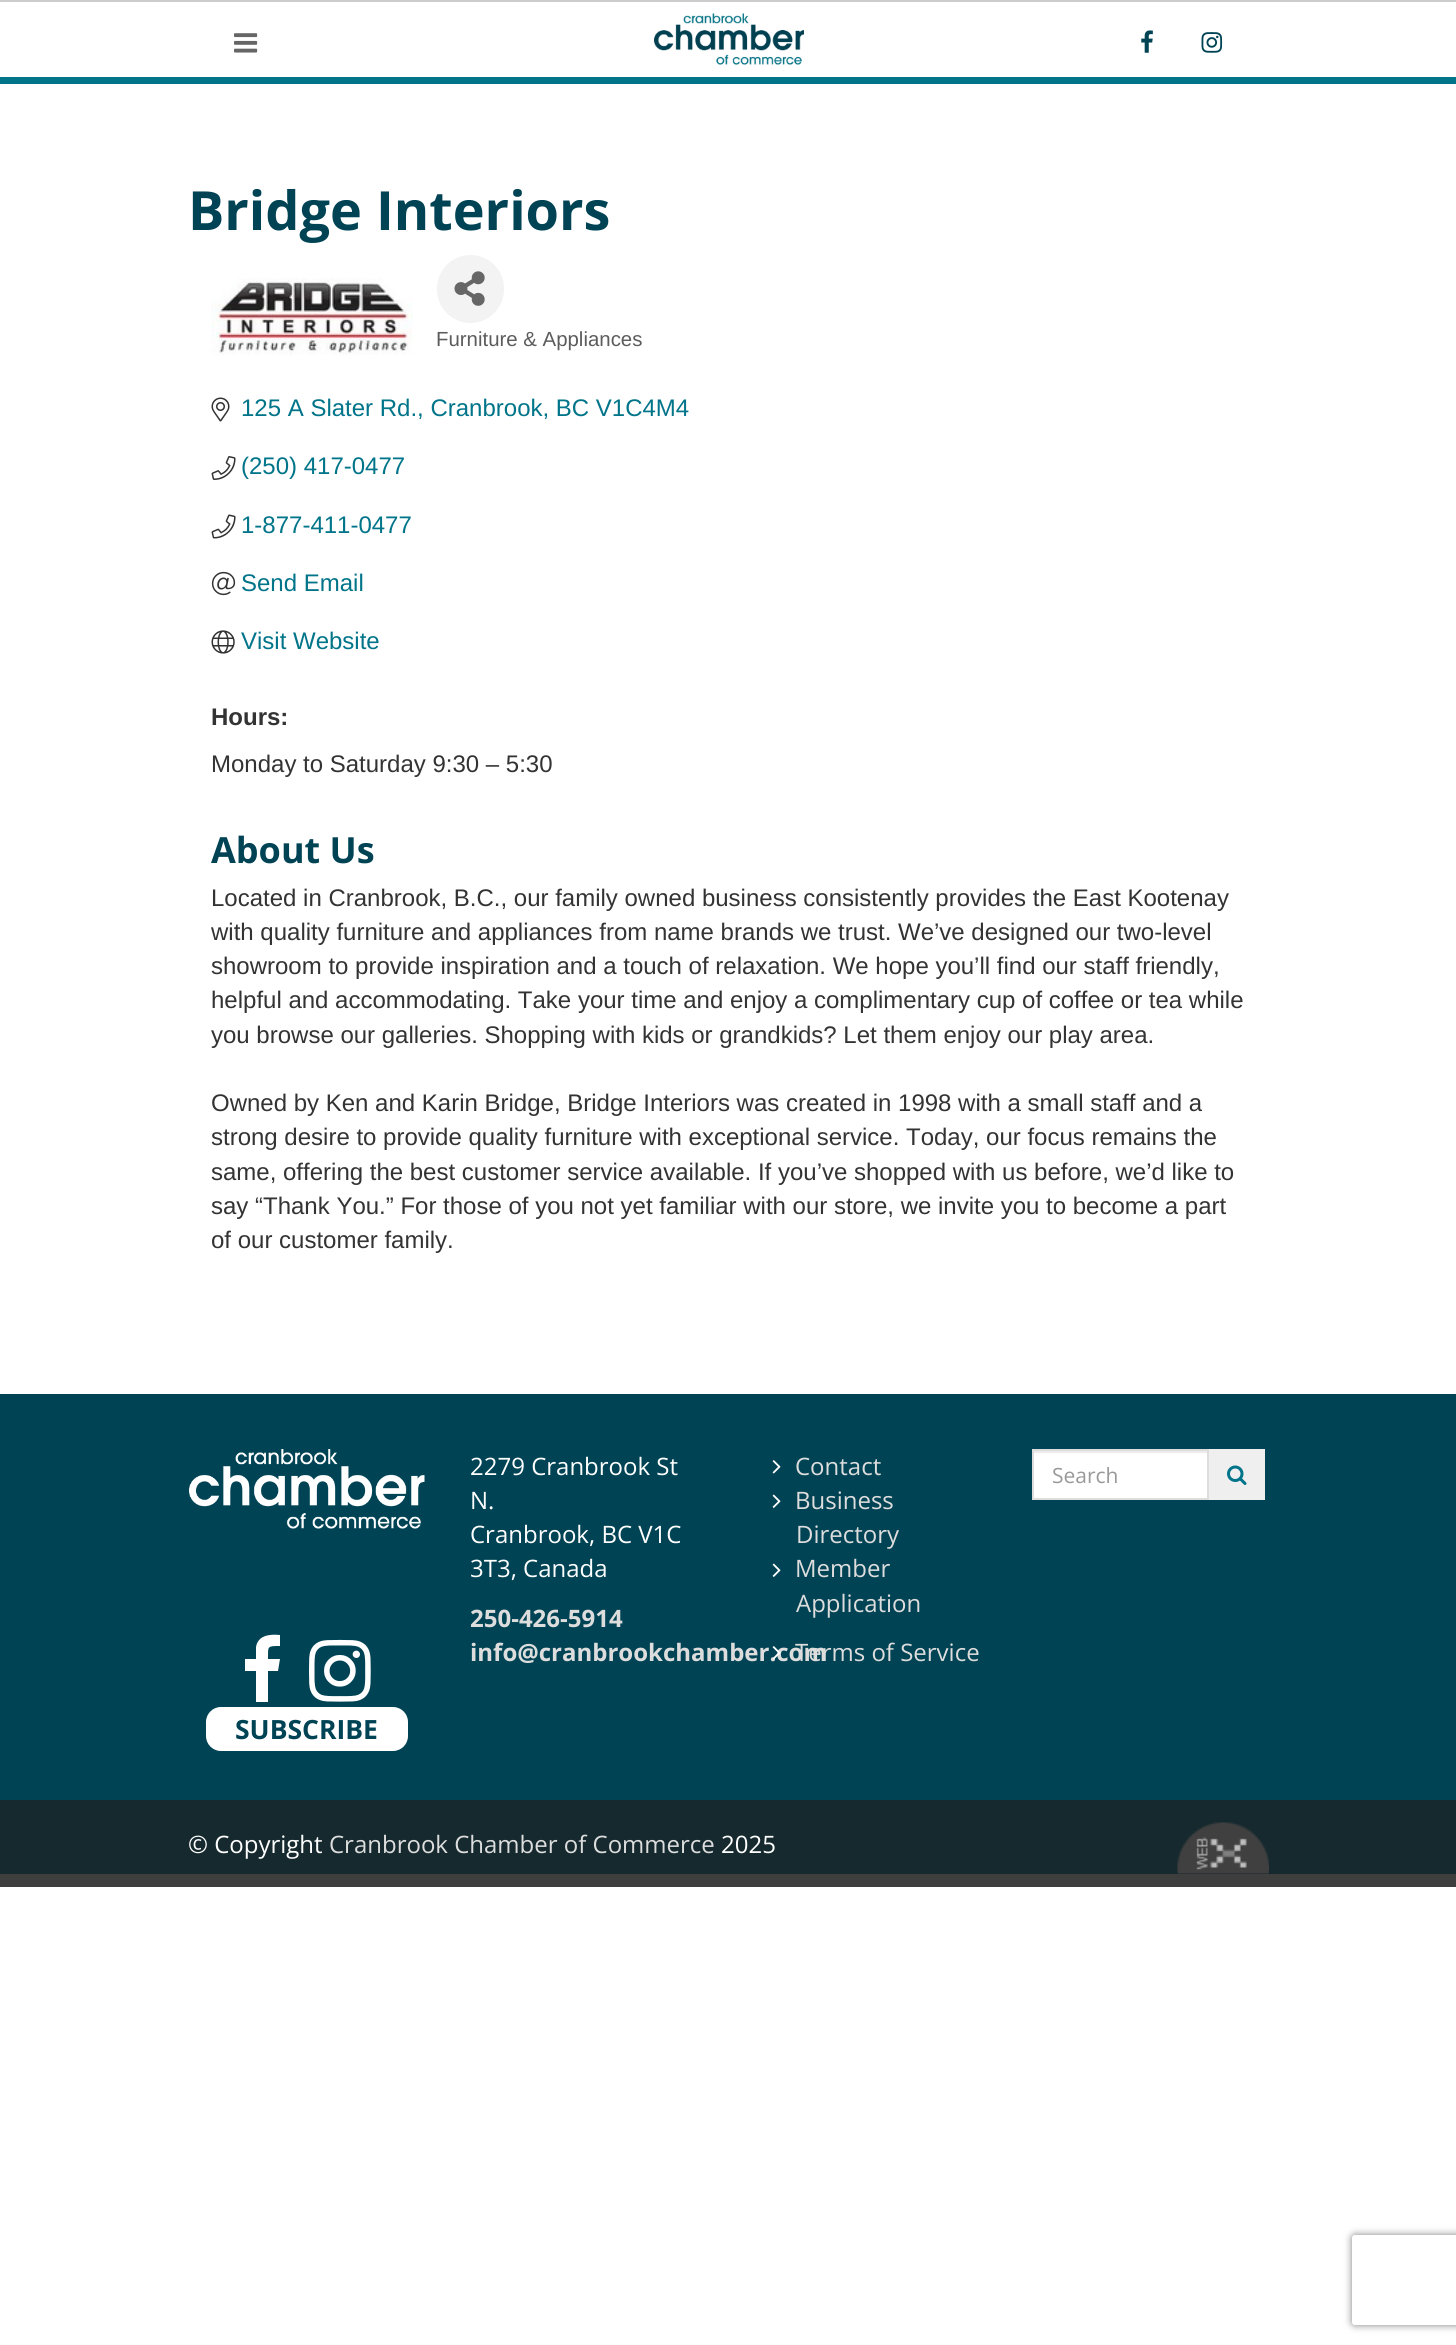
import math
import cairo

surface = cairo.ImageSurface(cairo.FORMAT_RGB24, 1456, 2345)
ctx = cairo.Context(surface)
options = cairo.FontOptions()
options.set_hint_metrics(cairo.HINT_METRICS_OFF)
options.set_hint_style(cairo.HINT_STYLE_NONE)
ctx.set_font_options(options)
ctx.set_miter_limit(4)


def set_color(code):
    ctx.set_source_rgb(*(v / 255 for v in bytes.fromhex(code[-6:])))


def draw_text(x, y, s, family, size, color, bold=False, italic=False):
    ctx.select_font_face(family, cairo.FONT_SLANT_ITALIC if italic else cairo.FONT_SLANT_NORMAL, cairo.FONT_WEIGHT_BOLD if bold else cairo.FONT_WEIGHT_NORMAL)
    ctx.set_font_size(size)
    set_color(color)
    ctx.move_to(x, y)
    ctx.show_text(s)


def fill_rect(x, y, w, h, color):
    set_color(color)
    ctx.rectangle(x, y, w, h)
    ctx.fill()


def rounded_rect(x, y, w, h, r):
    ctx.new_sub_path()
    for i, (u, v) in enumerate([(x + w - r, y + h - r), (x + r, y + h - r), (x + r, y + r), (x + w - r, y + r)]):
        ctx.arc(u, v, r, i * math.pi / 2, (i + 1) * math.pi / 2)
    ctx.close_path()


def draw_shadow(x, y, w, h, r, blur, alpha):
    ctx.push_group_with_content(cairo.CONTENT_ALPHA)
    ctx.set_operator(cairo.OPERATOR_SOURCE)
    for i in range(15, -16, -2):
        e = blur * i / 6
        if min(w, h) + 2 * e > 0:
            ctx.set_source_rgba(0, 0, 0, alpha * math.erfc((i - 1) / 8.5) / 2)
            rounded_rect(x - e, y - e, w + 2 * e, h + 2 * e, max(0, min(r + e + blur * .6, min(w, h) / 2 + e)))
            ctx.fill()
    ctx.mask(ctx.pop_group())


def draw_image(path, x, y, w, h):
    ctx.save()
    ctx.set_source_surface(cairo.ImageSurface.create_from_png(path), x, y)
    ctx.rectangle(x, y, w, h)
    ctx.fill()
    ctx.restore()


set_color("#ffffff")
ctx.paint()
fill_rect(0, 0, 1456, 2, "#cccccc")
fill_rect(0, 77, 1456, 7, "#007489")
draw_image("assets/img1.png", 234, 33, 24, 20)
draw_image("assets/img2.png", 654, 13, 150, 52)
draw_image("assets/img3.png", 1141, 30, 12, 23)
draw_image("assets/img4.png", 1201, 32, 22, 21)
draw_text(188, 230, "Bridge Interiors", "Open Sans", 54, "#004354", bold=True)
draw_image("assets/img5.png", 211, 278, 202, 77)
set_color("#f3f3f3")
rounded_rect(437, 255, 67, 68, 33.5)
ctx.fill()
draw_image("assets/img6.png", 454, 271, 31, 35)
draw_text(436, 346, "Furniture & Appliances", "Liberation Sans", 20.4, "#5c5c5c")
draw_image("assets/img7.png", 211, 397, 19, 25)
draw_text(241, 416, "125 A Slater Rd., Cranbrook, BC V1C4M4", "Liberation Sans", 24, "#007489")
draw_image("assets/img8.png", 211, 456, 25, 24)
draw_text(241, 474, "(250) 417-0477", "Liberation Sans", 24, "#007489")
draw_image("assets/img9.png", 211, 514, 25, 25)
draw_text(241, 533, "1-877-411-0477", "Liberation Sans", 24, "#007489")
draw_image("assets/img10.png", 211, 571, 25, 25)
draw_text(241, 591, "Send Email", "Liberation Sans", 24, "#007489")
draw_image("assets/img11.png", 211, 630, 24, 24)
draw_text(241, 649, "Visit Website", "Liberation Sans", 24, "#007489")
draw_text(211, 725, "Hours:", "Liberation Sans", 24, "#333333", bold=True)
draw_text(211, 772, "Monday to Saturday 9:30 – 5:30", "Liberation Sans", 24, "#333333")
draw_text(211, 863, "About Us", "Open Sans", 36, "#004354", bold=True)
draw_text(211, 906, "Located in Cranbrook, B.C., our family owned business consistently provides the East Kootenay", "Liberation Sans", 24, "#333333")
draw_text(211, 940, "with quality furniture and appliances from name brands we trust. We’ve designed our two-level", "Liberation Sans", 24, "#333333")
draw_text(211, 974, "showroom to provide inspiration and a touch of relaxation. We hope you’ll find our staff friendly,", "Liberation Sans", 24, "#333333")
draw_text(211, 1008, "helpful and accommodating. Take your time and enjoy a complimentary cup of coffee or tea while", "Liberation Sans", 24, "#333333")
draw_text(211, 1043, "you browse our galleries. Shopping with kids or grandkids? Let them enjoy our play area.", "Liberation Sans", 24, "#333333")
draw_text(211, 1111, "Owned by Ken and Karin Bridge, Bridge Interiors was created in 1998 with a small staff and a", "Liberation Sans", 24, "#333333")
draw_text(211, 1145, "strong desire to provide quality furniture with exceptional service. Today, our focus remains the", "Liberation Sans", 24, "#333333")
draw_text(211, 1180, "same, offering the best customer service available. If you’ve shopped with us before, we’d like to", "Liberation Sans", 24, "#333333")
draw_text(211, 1214, "say “Thank You.” For those of you not yet familiar with our store, we invite you to become a part", "Liberation Sans", 24, "#333333")
draw_text(211, 1248, "of our customer family.", "Liberation Sans", 24, "#333333")
fill_rect(0, 1394, 1456, 406, "#004354")
draw_text(470, 1475, "2279 Cranbrook St", "Open Sans", 24, "#ffffff")
draw_text(470, 1509, "N.", "Open Sans", 24, "#ffffff")
draw_text(470, 1543, "Cranbrook, BC V1C", "Open Sans", 24, "#ffffff")
draw_text(470, 1577, "3T3, Canada", "Open Sans", 24, "#ffffff")
draw_text(470, 1627, "250-426-5914", "Open Sans", 24, "#dddddd", bold=True)
draw_text(470, 1661, "info@cranbrookchamber.com", "Open Sans", 24, "#dddddd", bold=True)
draw_image("assets/img12.png", 772, 1460, 9, 14)
draw_text(795, 1475, "Contact", "Open Sans", 24, "#dddddd")
draw_image("assets/img13.png", 772, 1494, 9, 14)
draw_text(795, 1509, "Business", "Open Sans", 24, "#dddddd")
draw_text(796, 1543, "Directory", "Open Sans", 24, "#dddddd")
draw_image("assets/img13.png", 772, 1563, 9, 14)
draw_text(795, 1577, "Member", "Open Sans", 24, "#dddddd")
draw_text(796, 1612, "Application", "Open Sans", 24, "#dddddd")
draw_image("assets/img14.png", 772, 1646, 9, 14)
draw_text(795, 1661, "Terms of Service", "Open Sans", 24, "#dddddd")
fill_rect(1034, 1453, 173, 45, "#ffffff")
fill_rect(1034, 1451, 174, 2, "#ececec")
ctx.rectangle(1033, 1450, 175, 49)
set_color("#dddddd")
ctx.stroke()
draw_text(1052, 1483, "Search", "Open Sans", 21, "#999999")
fill_rect(1209, 1449, 56, 51, "#efefef")
draw_image("assets/img15.png", 1227, 1465, 20, 20)
draw_image("assets/img16.png", 189, 1449, 236, 80)
set_color("#ffffff")
ctx.new_path()
ctx.move_to(280, 1635)
ctx.line_to(280, 1646)
ctx.curve_to(267, 1646, 268, 1646, 268, 1659)
ctx.line_to(280, 1659)
ctx.line_to(278, 1671)
ctx.line_to(268, 1671)
ctx.line_to(268, 1702)
ctx.line_to(256, 1702)
ctx.line_to(256, 1671)
ctx.line_to(245, 1671)
ctx.line_to(245, 1659)
ctx.line_to(256, 1659)
ctx.line_to(256, 1647)
ctx.curve_to(258, 1635, 270, 1634, 280, 1635)
ctx.close_path()
ctx.fill()
draw_image("assets/img17.png", 309, 1639, 62, 63)
rounded_rect(206, 1707, 202, 44, 15)
ctx.fill()
draw_text(235, 1739, "SUBSCRIBE", "Open Sans", 26.5, "#004354", bold=True)
fill_rect(0, 1800, 1456, 74, "#15292e")
draw_text(188, 1853, "© Copyright", "Open Sans", 24, "#ffffff")
draw_text(329, 1853, "Cranbrook Chamber of Commerce", "Open Sans", 24, "#dddddd")
draw_text(721, 1853, "2025", "Open Sans", 24, "#ffffff")
draw_image("assets/img18.png", 1177, 1822, 92, 52)
fill_rect(0, 1874, 1456, 13, "#3e3e3e")
ctx.save()
ctx.set_fill_rule(cairo.FILL_RULE_EVEN_ODD)
ctx.new_path()
ctx.move_to(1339, 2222)
ctx.line_to(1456, 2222)
ctx.line_to(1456, 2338)
ctx.line_to(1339, 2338)
ctx.close_path()
ctx.move_to(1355, 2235)
ctx.line_to(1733, 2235)
ctx.curve_to(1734.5, 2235, 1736, 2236.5, 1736, 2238)
ctx.line_to(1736, 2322)
ctx.curve_to(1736, 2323.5, 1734.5, 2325, 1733, 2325)
ctx.line_to(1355, 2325)
ctx.curve_to(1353.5, 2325, 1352, 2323.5, 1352, 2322)
ctx.line_to(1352, 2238)
ctx.curve_to(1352, 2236.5, 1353.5, 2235, 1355, 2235)
ctx.close_path()
ctx.clip()
set_color("#808080")
draw_shadow(1352, 2235, 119, 90, 3, 4, 1)
ctx.restore()
surface.write_to_png("output.png")
